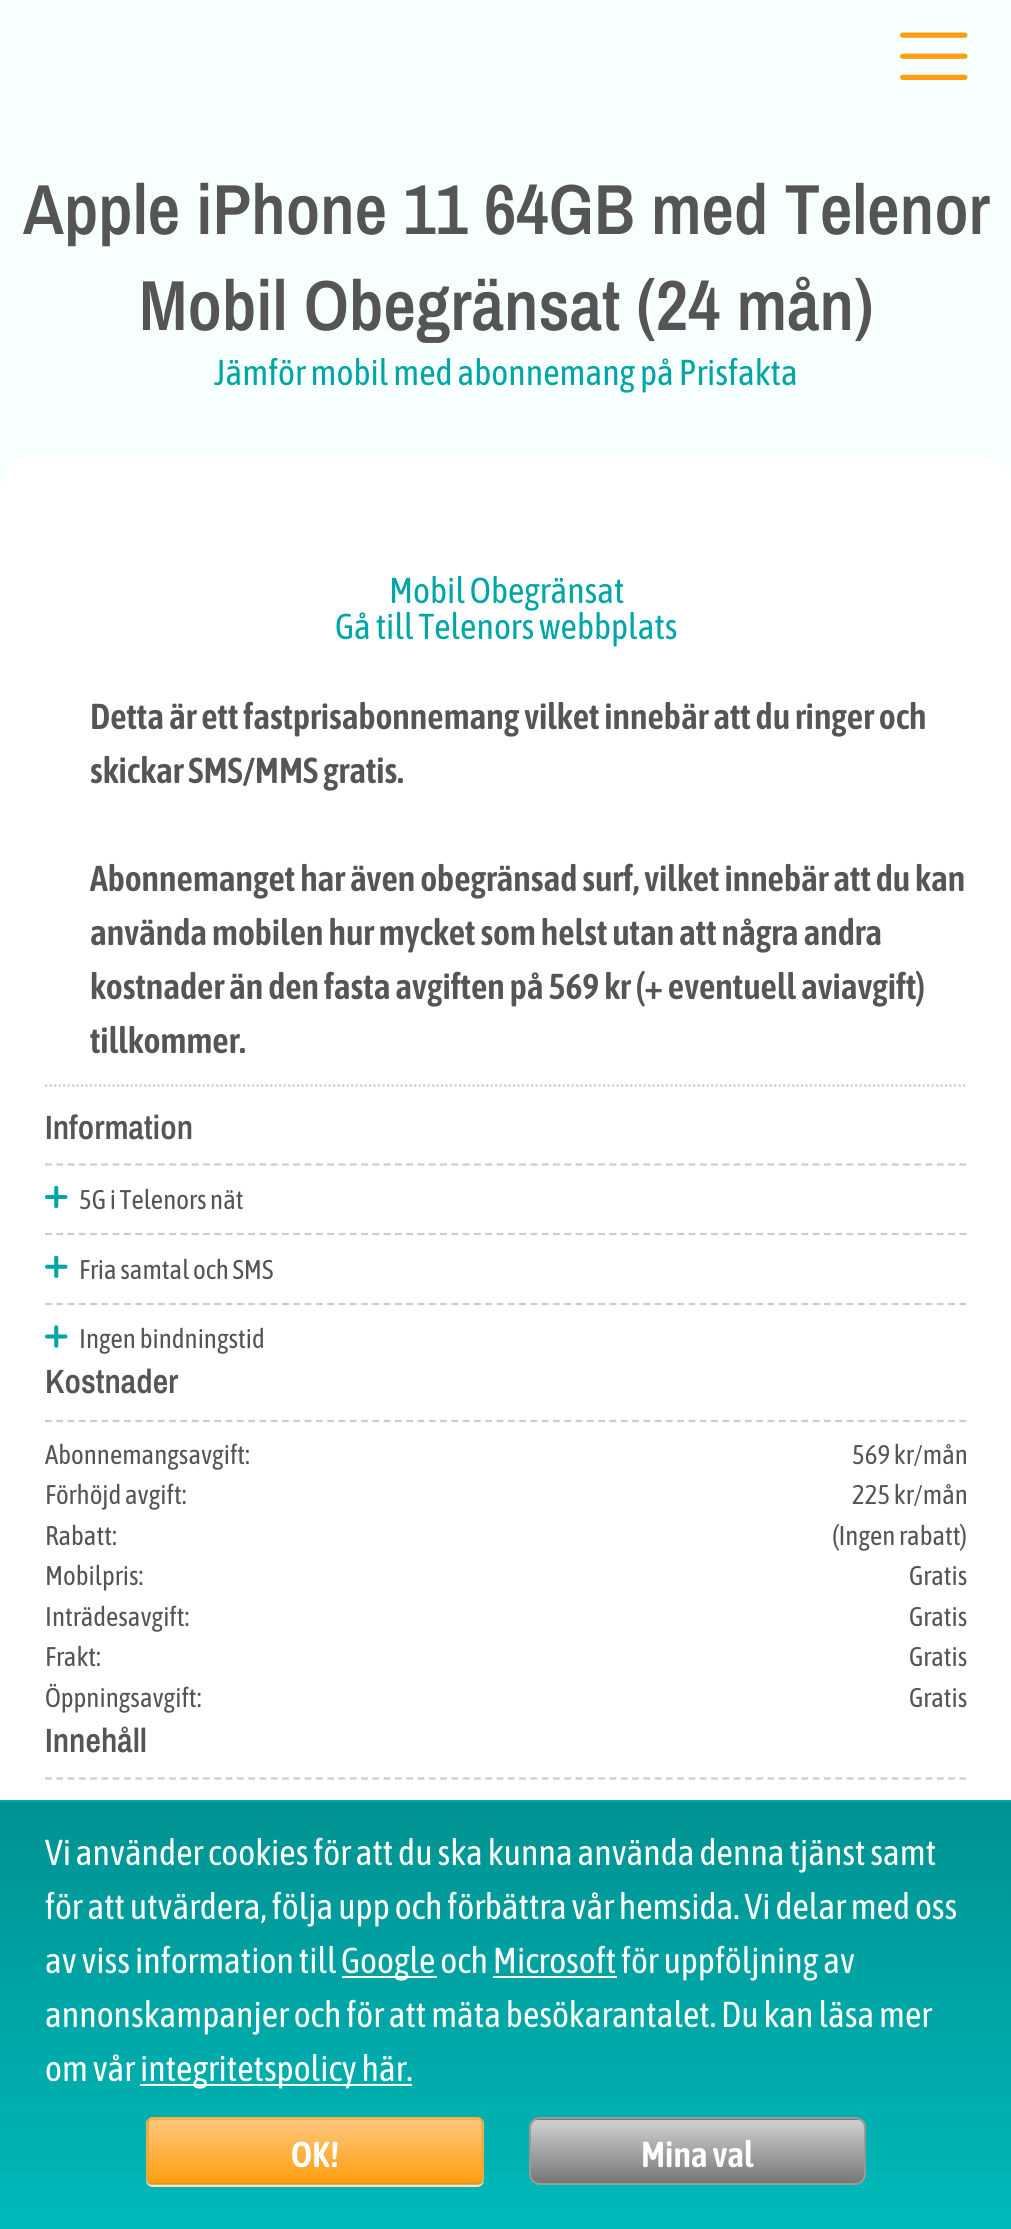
import math
import cairo

surface = cairo.ImageSurface(cairo.FORMAT_RGB24, 1011, 2229)
ctx = cairo.Context(surface)
options = cairo.FontOptions()
options.set_hint_metrics(cairo.HINT_METRICS_OFF)
options.set_hint_style(cairo.HINT_STYLE_NONE)
ctx.set_font_options(options)
ctx.set_miter_limit(4)


def set_color(code):
    ctx.set_source_rgb(*(v / 255 for v in bytes.fromhex(code[-6:])))


def draw_text(x, y, s, family, size, color, bold=False, italic=False):
    ctx.select_font_face(family, cairo.FONT_SLANT_ITALIC if italic else cairo.FONT_SLANT_NORMAL, cairo.FONT_WEIGHT_BOLD if bold else cairo.FONT_WEIGHT_NORMAL)
    ctx.set_font_size(size)
    set_color(color)
    ctx.move_to(x, y)
    ctx.show_text(s)


def fill_rect(x, y, w, h, color):
    set_color(color)
    ctx.rectangle(x, y, w, h)
    ctx.fill()


def rounded_rect(x, y, w, h, r):
    ctx.new_sub_path()
    for i, (u, v) in enumerate([(x + w - r, y + h - r), (x + r, y + h - r), (x + r, y + r), (x + w - r, y + r)]):
        ctx.arc(u, v, r, i * math.pi / 2, (i + 1) * math.pi / 2)
    ctx.close_path()


def draw_image(path, x, y, w, h):
    ctx.save()
    ctx.set_source_surface(cairo.ImageSurface.create_from_png(path), x, y)
    ctx.rectangle(x, y, w, h)
    ctx.fill()
    ctx.restore()


set_color("#f7ffff")
ctx.paint()
draw_image("assets/img1.png", 900, 32, 68, 48)
draw_text(23, 234, "Apple iPhone 11 64GB med Telenor", "Archivo Narrow SemiBold", 70.9, "#555555")
draw_text(139, 330, "Mobil Obegränsat (24 mån)", "Archivo Narrow SemiBold", 70.9, "#555555")
draw_text(214, 385, "Jämför mobil med abonnemang på Prisfakta", "Asap Condensed", 36, "#00a6a6")
set_color("#ffffff")
rounded_rect(0, 457, 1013, 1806, 34)
ctx.fill()
draw_text(389, 603, "Mobil Obegränsat", "Asap Condensed", 36, "#00a6a6")
draw_text(335, 639, "Gå till Telenors webbplats", "Asap Condensed", 36, "#00a6a6")
draw_text(90, 729, "Detta är ett fastprisabonnemang vilket innebär att du ringer och", "Asap Condensed SemiBold", 36, "#555555")
draw_text(90, 783, "skickar SMS/MMS gratis.", "Asap Condensed SemiBold", 36, "#555555")
draw_text(90, 891, "Abonnemanget har även obegränsad surf, vilket innebär att du kan", "Asap Condensed SemiBold", 36, "#555555")
draw_text(90, 945, "använda mobilen hur mycket som helst utan att några andra", "Asap Condensed SemiBold", 36, "#555555")
draw_text(90, 999, "kostnader än den fasta avgiften på 569 kr (+ eventuell aviavgift)", "Asap Condensed SemiBold", 36, "#555555")
draw_text(90, 1053, "tillkommer.", "Asap Condensed SemiBold", 36, "#555555")
ctx.new_path()
ctx.move_to(45, 1085.5)
ctx.line_to(967.5, 1085.5)
set_color("#cccccc")
ctx.set_line_width(2.2)
ctx.set_dash([2.25, 2.25])
ctx.stroke()
draw_text(45, 1139, "Information", "Archivo Narrow SemiBold", 33.75, "#555555")
ctx.new_path()
ctx.move_to(45, 1164.5)
ctx.line_to(967.5, 1164.5)
set_color("#cccccc")
ctx.set_dash([6.75, 4.54])
ctx.stroke()
draw_image("assets/img2.png", 45, 1186, 23, 22)
draw_text(79, 1209, "5G i Telenors nät", "Asap Condensed", 27, "#555555")
ctx.new_path()
ctx.move_to(45, 1234)
ctx.line_to(967.5, 1234)
set_color("#cccccc")
ctx.stroke()
draw_image("assets/img3.png", 45, 1256, 23, 22)
draw_text(79, 1279, "Fria samtal och SMS", "Asap Condensed", 27, "#555555")
ctx.new_path()
ctx.move_to(45, 1304)
ctx.line_to(967.5, 1304)
set_color("#cccccc")
ctx.stroke()
draw_image("assets/img4.png", 45, 1325, 23, 23)
draw_text(79, 1348, "Ingen bindningstid", "Asap Condensed", 27, "#555555")
draw_text(45, 1393, "Kostnader", "Archivo Narrow SemiBold", 33.75, "#555555")
ctx.new_path()
ctx.move_to(45, 1421)
ctx.line_to(967.5, 1421)
set_color("#cccccc")
ctx.stroke()
draw_text(45, 1464, "Abonnemangsavgift:", "Asap Condensed", 27, "#555555")
draw_text(852, 1464, "569 kr/mån", "Asap Condensed", 27, "#555555")
draw_text(45, 1504, "Förhöjd avgift:", "Asap Condensed", 27, "#555555")
draw_text(852, 1504, "225 kr/mån", "Asap Condensed", 27, "#555555")
draw_text(45, 1545, "Rabatt:", "Asap Condensed", 27, "#555555")
draw_text(832, 1545, "(Ingen rabatt)", "Asap Condensed", 27, "#555555")
draw_text(45, 1585, "Mobilpris:", "Asap Condensed", 27, "#555555")
draw_text(909, 1585, "Gratis", "Asap Condensed", 27, "#555555")
draw_text(45, 1626, "Inträdesavgift:", "Asap Condensed", 27, "#555555")
draw_text(909, 1626, "Gratis", "Asap Condensed", 27, "#555555")
draw_text(45, 1666, "Frakt:", "Asap Condensed", 27, "#555555")
draw_text(909, 1666, "Gratis", "Asap Condensed", 27, "#555555")
draw_text(45, 1707, "Öppningsavgift:", "Asap Condensed", 27, "#555555")
draw_text(909, 1707, "Gratis", "Asap Condensed", 27, "#555555")
draw_text(45, 1752, "Innehåll", "Archivo Narrow SemiBold", 33.75, "#555555")
ctx.new_path()
ctx.move_to(45, 1778.5)
ctx.line_to(967.5, 1778.5)
set_color("#cccccc")
ctx.stroke()
gradient = cairo.LinearGradient(506, 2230, 506, 1802)
gradient.add_color_stop_rgba(0, 0, 0.729, 0.729, 1)
gradient.add_color_stop_rgba(1, 0, 0.573, 0.573, 1)
ctx.set_source(gradient)
ctx.rectangle(0, 1802, 1011, 427)
ctx.fill()
fill_rect(0, 1800, 1011, 2, "#00a7a7")
draw_text(45, 1865, "Vi använder cookies för att du ska kunna använda denna tjänst samt", "Asap Condensed", 36, "#ffffff")
draw_text(45, 1919, "för att utvärdera, följa upp och förbättra vår hemsida. Vi delar med oss", "Asap Condensed", 36, "#ffffff")
draw_text(45, 1973, "av viss information till", "Asap Condensed", 36, "#ffffff")
fill_rect(342, 1976, 95, 2, "#ffffff")
draw_text(341, 1973, "Google och Microsoft för uppföljning av", "Asap Condensed", 36, "#ffffff")
fill_rect(493, 1976, 124, 2, "#ffffff")
draw_text(45, 2027, "annonskampanjer och för att mäta besökarantalet. Du kan läsa mer", "Asap Condensed", 36, "#ffffff")
draw_text(45, 2081, "om vår", "Asap Condensed", 36, "#ffffff")
fill_rect(140, 2084, 272, 2, "#ffffff")
draw_text(140, 2081, "integritetspolicy här.", "Asap Condensed", 36, "#ffffff")
set_color("#fce2c1")
ctx.new_path()
ctx.move_to(146, 2125)
ctx.line_to(146, 2180)
ctx.curve_to(146, 2184, 149, 2187, 153, 2187)
ctx.line_to(477, 2187)
ctx.curve_to(481, 2187, 484, 2184, 484, 2180)
ctx.line_to(484, 2125)
ctx.line_to(484, 2178)
ctx.curve_to(484, 2182, 481, 2185, 477, 2185)
ctx.line_to(153, 2185)
ctx.curve_to(149, 2185, 146, 2182, 146, 2178)
ctx.close_path()
ctx.fill()
ctx.save()
rounded_rect(146, 2117, 338, 68, 7)
ctx.clip()
gradient = cairo.LinearGradient(315, 2057, 315, 2120)
gradient.add_color_stop_rgba(0.05, 1, 0.769, 0.467, 1)
gradient.add_color_stop_rgba(1, 1, 0.624, 0.055, 1)
ctx.set_source(gradient)
ctx.rectangle(146, 2117, 338, 3)
ctx.fill()
gradient = cairo.LinearGradient(315, 2120, 315, 2183)
gradient.add_color_stop_rgba(0.05, 1, 0.769, 0.467, 1)
gradient.add_color_stop_rgba(1, 1, 0.624, 0.055, 1)
ctx.set_source(gradient)
ctx.rectangle(146, 2120, 338, 63)
ctx.fill()
gradient = cairo.LinearGradient(315, 2183, 315, 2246)
gradient.add_color_stop_rgba(0.05, 1, 0.769, 0.467, 1)
gradient.add_color_stop_rgba(1, 1, 0.624, 0.055, 1)
ctx.set_source(gradient)
ctx.rectangle(146, 2183, 338, 2)
ctx.fill()
ctx.restore()
ctx.new_path()
ctx.move_to(149, 2120)
ctx.curve_to(150, 2119, 151.5, 2118.5, 153, 2118.5)
ctx.line_to(477, 2118.5)
ctx.curve_to(478.5, 2118.5, 480, 2119, 481, 2120)
set_color("#f5b74e")
ctx.set_dash([])
ctx.stroke()
ctx.new_path()
ctx.move_to(481, 2120)
ctx.curve_to(482, 2121, 482.5, 2122.5, 482.5, 2124)
ctx.line_to(482.5, 2178)
ctx.curve_to(482.5, 2179.5, 482, 2181, 481, 2182)
set_color("#e5a73e")
ctx.stroke()
ctx.new_path()
ctx.move_to(481, 2182)
ctx.curve_to(480, 2183, 478.5, 2183.5, 477, 2183.5)
ctx.line_to(153, 2183.5)
ctx.curve_to(151.5, 2183.5, 150, 2183, 149, 2182)
set_color("#d6982f")
ctx.stroke()
ctx.new_path()
ctx.move_to(149, 2182)
ctx.curve_to(148, 2181, 147.5, 2179.5, 147.5, 2178)
ctx.line_to(147.5, 2124)
ctx.curve_to(147.5, 2122.5, 148, 2121, 149, 2120)
set_color("#e5a73e")
ctx.stroke()
draw_text(291, 2167, "OK!", "Asap Condensed SemiBold", 36, "#ffffff")
ctx.save()
rounded_rect(529, 2117, 337, 68, 11)
ctx.clip()
gradient = cairo.LinearGradient(698, 2057, 698, 2120)
gradient.add_color_stop_rgba(0.05, 0.8, 0.8, 0.8, 1)
gradient.add_color_stop_rgba(1, 0.467, 0.467, 0.467, 1)
ctx.set_source(gradient)
ctx.rectangle(529, 2117, 337, 3)
ctx.fill()
gradient = cairo.LinearGradient(698, 2120, 698, 2183)
gradient.add_color_stop_rgba(0.05, 0.8, 0.8, 0.8, 1)
gradient.add_color_stop_rgba(1, 0.467, 0.467, 0.467, 1)
ctx.set_source(gradient)
ctx.rectangle(529, 2120, 337, 63)
ctx.fill()
ctx.restore()
rounded_rect(530, 2118, 335, 66, 10)
set_color("#999999")
ctx.set_line_width(2)
ctx.stroke()
draw_text(641, 2167, "Mina val", "Asap Condensed SemiBold", 36, "#ffffff")
surface.write_to_png("output.png")
